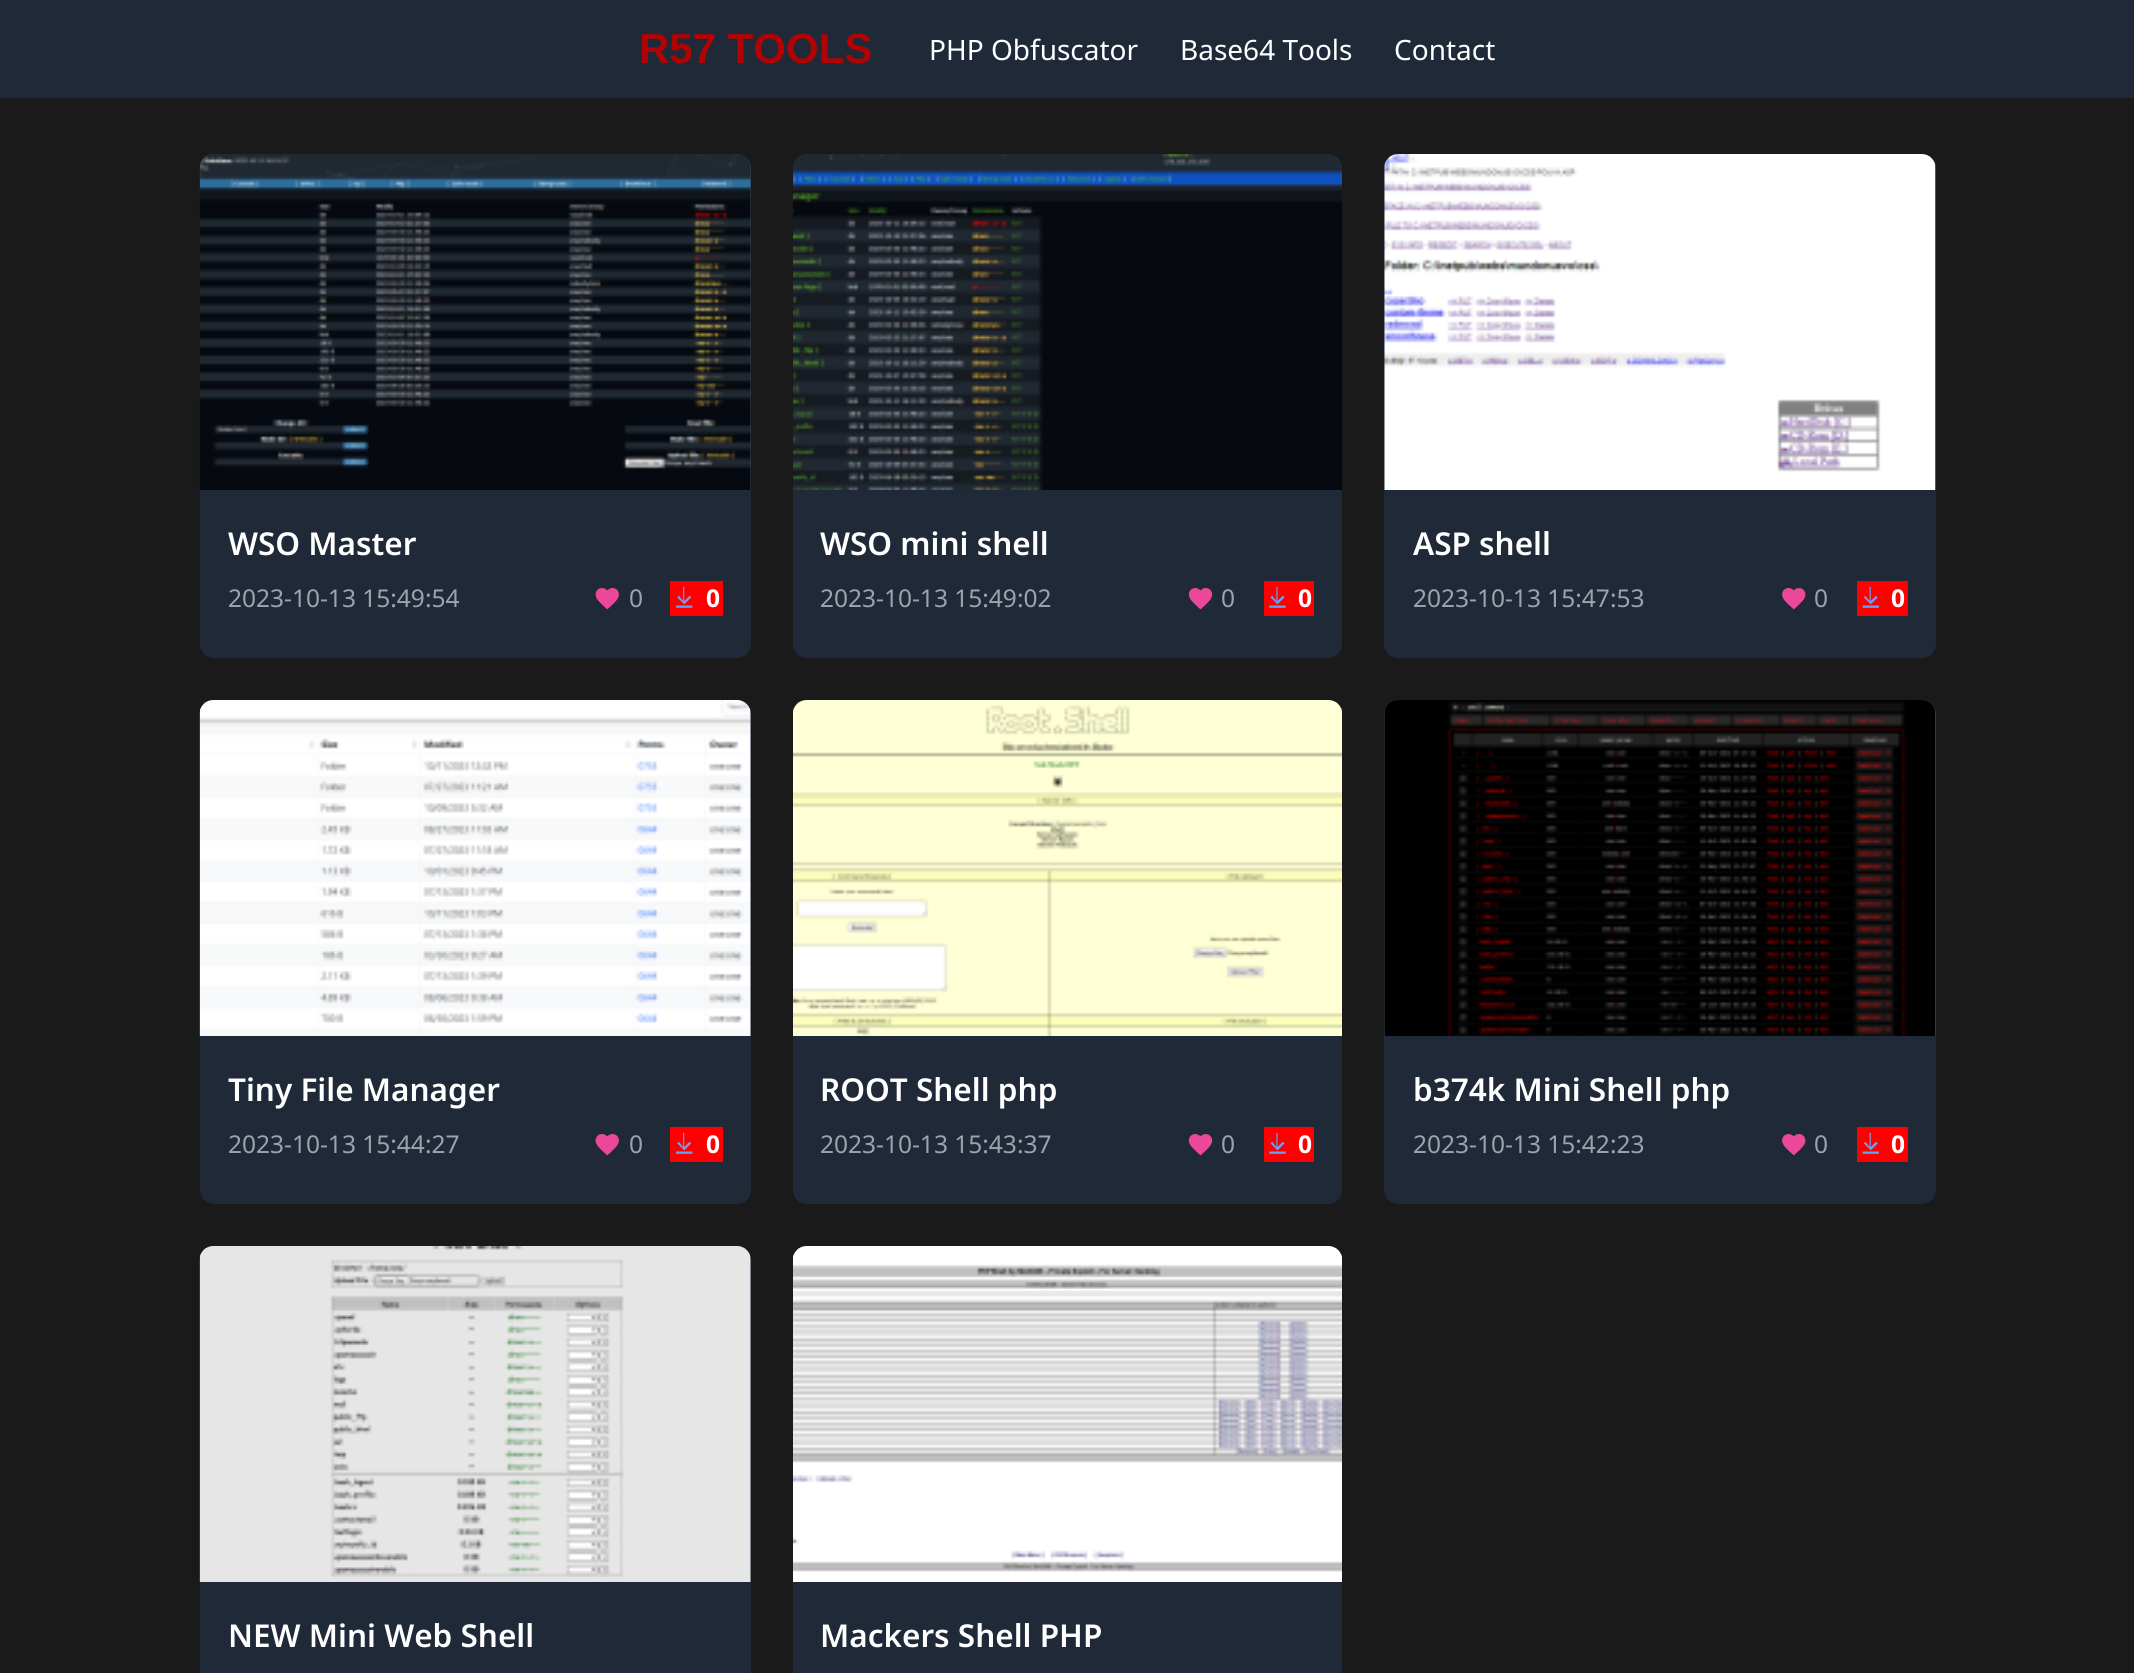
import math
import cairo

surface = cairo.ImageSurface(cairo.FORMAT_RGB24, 2134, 1673)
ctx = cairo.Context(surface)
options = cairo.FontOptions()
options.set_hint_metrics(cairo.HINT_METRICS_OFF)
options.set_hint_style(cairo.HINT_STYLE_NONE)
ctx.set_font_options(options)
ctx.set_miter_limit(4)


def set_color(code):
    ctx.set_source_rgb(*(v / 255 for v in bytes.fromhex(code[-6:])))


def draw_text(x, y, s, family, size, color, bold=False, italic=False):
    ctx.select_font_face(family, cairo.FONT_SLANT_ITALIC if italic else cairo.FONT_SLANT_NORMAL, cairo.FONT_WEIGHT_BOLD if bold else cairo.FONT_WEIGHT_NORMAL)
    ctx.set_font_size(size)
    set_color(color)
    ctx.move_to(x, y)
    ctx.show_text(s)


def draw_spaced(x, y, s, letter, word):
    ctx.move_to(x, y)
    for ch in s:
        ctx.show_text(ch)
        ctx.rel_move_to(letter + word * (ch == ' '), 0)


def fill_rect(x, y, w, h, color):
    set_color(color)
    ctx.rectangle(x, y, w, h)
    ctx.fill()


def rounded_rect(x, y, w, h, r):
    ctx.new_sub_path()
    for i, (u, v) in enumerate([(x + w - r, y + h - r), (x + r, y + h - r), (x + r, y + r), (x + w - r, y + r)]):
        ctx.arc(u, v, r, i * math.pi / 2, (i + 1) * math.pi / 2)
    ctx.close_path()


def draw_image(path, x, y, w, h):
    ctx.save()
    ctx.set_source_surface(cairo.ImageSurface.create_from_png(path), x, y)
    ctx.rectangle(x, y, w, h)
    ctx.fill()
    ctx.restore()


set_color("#1a1a1a")
ctx.paint()
fill_rect(0, 0, 2134, 98, "#1f2937")
draw_text(639, 63, "R57 TOOLS", "Liberation Sans", 42, "#b10303", bold=True)
draw_text(929, 60, "PHP Obfuscator", "Noto Sans", 28, "#ffffff")
draw_text(1180, 60, "Base64 Tools", "Noto Sans", 28, "#ffffff")
draw_text(1394, 60, "Contact", "Noto Sans", 28, "#ffffff")
set_color("#1f2937")
rounded_rect(200, 154, 551, 504, 14)
ctx.fill()
set_color("#374151")
ctx.new_path()
ctx.move_to(214, 154)
ctx.line_to(737, 154)
ctx.curve_to(744.5, 154, 751, 160.5, 751, 168)
ctx.line_to(751, 490)
ctx.line_to(200, 490)
ctx.line_to(200, 168)
ctx.curve_to(200, 160.5, 206.5, 154, 214, 154)
ctx.close_path()
ctx.fill()
draw_image("assets/img1.png", 199, 154, 552, 336)
draw_text(228, 555, "WSO Master", "Noto Sans SemiBold", 31.5, "#ffffff")
draw_text(228, 607, "2023-10-13 15:49:54", "Noto Sans", 24.5, "#9ca3af")
draw_image("assets/img2.png", 595, 588, 24, 22)
draw_text(629, 607, "0", "Noto Sans", 24.5, "#9ca3af")
fill_rect(670, 581, 53, 35, "#ff0000")
draw_image("assets/img3.png", 676, 586, 17, 22)
ctx.select_font_face("Noto Sans", cairo.FONT_SLANT_NORMAL, cairo.FONT_WEIGHT_BOLD)
set_color("#ffffff")
draw_spaced(706, 607, "0", 2, 0)
set_color("#1f2937")
rounded_rect(793, 154, 549, 504, 14)
ctx.fill()
draw_image("assets/img4.png", 793, 154, 549, 336)
draw_text(820, 555, "WSO mini shell", "Noto Sans SemiBold", 31.5, "#ffffff")
draw_text(820, 607, "2023-10-13 15:49:02", "Noto Sans", 24.5, "#9ca3af")
draw_image("assets/img5.png", 1188, 588, 25, 22)
draw_text(1221, 607, "0", "Noto Sans", 24.5, "#9ca3af")
fill_rect(1264, 581, 50, 35, "#ff0000")
draw_image("assets/img6.png", 1269, 586, 17, 22)
ctx.select_font_face("Noto Sans", cairo.FONT_SLANT_NORMAL, cairo.FONT_WEIGHT_BOLD)
set_color("#ffffff")
draw_spaced(1298, 607, "0", 2, 0)
set_color("#1f2937")
rounded_rect(1384, 154, 552, 504, 14)
ctx.fill()
set_color("#374151")
ctx.new_path()
ctx.move_to(1398, 154)
ctx.line_to(1922, 154)
ctx.curve_to(1929.5, 154, 1936, 160.5, 1936, 168)
ctx.line_to(1936, 490)
ctx.line_to(1384, 490)
ctx.line_to(1384, 168)
ctx.curve_to(1384, 160.5, 1390.5, 154, 1398, 154)
ctx.close_path()
ctx.fill()
draw_image("assets/img7.png", 1384, 154, 552, 336)
draw_text(1413, 555, "ASP shell", "Noto Sans SemiBold", 31.5, "#ffffff")
draw_text(1413, 607, "2023-10-13 15:47:53", "Noto Sans", 24.5, "#9ca3af")
draw_image("assets/img8.png", 1782, 588, 24, 22)
draw_text(1814, 607, "0", "Noto Sans", 24.5, "#9ca3af")
fill_rect(1857, 581, 51, 35, "#ff0000")
draw_image("assets/img9.png", 1862, 586, 17, 22)
ctx.select_font_face("Noto Sans", cairo.FONT_SLANT_NORMAL, cairo.FONT_WEIGHT_BOLD)
set_color("#ffffff")
draw_spaced(1891, 607, "0", 2, 0)
set_color("#1f2937")
rounded_rect(200, 700, 551, 504, 14)
ctx.fill()
set_color("#374151")
ctx.new_path()
ctx.move_to(214, 700)
ctx.line_to(737, 700)
ctx.curve_to(744.5, 700, 751, 706.5, 751, 714)
ctx.line_to(751, 1036)
ctx.line_to(200, 1036)
ctx.line_to(200, 714)
ctx.curve_to(200, 706.5, 206.5, 700, 214, 700)
ctx.close_path()
ctx.fill()
draw_image("assets/img10.png", 199, 700, 552, 336)
draw_text(228, 1101, "Tiny File Manager", "Noto Sans SemiBold", 31.5, "#ffffff")
draw_text(228, 1153, "2023-10-13 15:44:27", "Noto Sans", 24.5, "#9ca3af")
draw_image("assets/img2.png", 595, 1134, 24, 22)
draw_text(629, 1153, "0", "Noto Sans", 24.5, "#9ca3af")
fill_rect(670, 1127, 53, 35, "#ff0000")
draw_image("assets/img3.png", 676, 1132, 17, 22)
ctx.select_font_face("Noto Sans", cairo.FONT_SLANT_NORMAL, cairo.FONT_WEIGHT_BOLD)
set_color("#ffffff")
draw_spaced(706, 1153, "0", 2, 0)
set_color("#1f2937")
rounded_rect(793, 700, 549, 504, 14)
ctx.fill()
draw_image("assets/img11.png", 793, 700, 549, 336)
draw_text(820, 1101, "ROOT Shell php", "Noto Sans SemiBold", 31.5, "#ffffff")
draw_text(820, 1153, "2023-10-13 15:43:37", "Noto Sans", 24.5, "#9ca3af")
draw_image("assets/img5.png", 1188, 1134, 25, 22)
draw_text(1221, 1153, "0", "Noto Sans", 24.5, "#9ca3af")
fill_rect(1264, 1127, 50, 35, "#ff0000")
draw_image("assets/img6.png", 1269, 1132, 17, 22)
ctx.select_font_face("Noto Sans", cairo.FONT_SLANT_NORMAL, cairo.FONT_WEIGHT_BOLD)
set_color("#ffffff")
draw_spaced(1298, 1153, "0", 2, 0)
set_color("#1f2937")
rounded_rect(1384, 700, 552, 504, 14)
ctx.fill()
set_color("#374151")
ctx.new_path()
ctx.move_to(1398, 700)
ctx.line_to(1922, 700)
ctx.curve_to(1929.5, 700, 1936, 706.5, 1936, 714)
ctx.line_to(1936, 1036)
ctx.line_to(1384, 1036)
ctx.line_to(1384, 714)
ctx.curve_to(1384, 706.5, 1390.5, 700, 1398, 700)
ctx.close_path()
ctx.fill()
draw_image("assets/img12.png", 1384, 700, 552, 336)
draw_text(1413, 1101, "b374k Mini Shell php", "Noto Sans SemiBold", 31.5, "#ffffff")
draw_text(1413, 1153, "2023-10-13 15:42:23", "Noto Sans", 24.5, "#9ca3af")
draw_image("assets/img8.png", 1782, 1134, 24, 22)
draw_text(1814, 1153, "0", "Noto Sans", 24.5, "#9ca3af")
fill_rect(1857, 1127, 51, 35, "#ff0000")
draw_image("assets/img9.png", 1862, 1132, 17, 22)
ctx.select_font_face("Noto Sans", cairo.FONT_SLANT_NORMAL, cairo.FONT_WEIGHT_BOLD)
set_color("#ffffff")
draw_spaced(1891, 1153, "0", 2, 0)
set_color("#1f2937")
rounded_rect(200, 1246, 551, 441, 14)
ctx.fill()
set_color("#374151")
ctx.new_path()
ctx.move_to(214, 1246)
ctx.line_to(737, 1246)
ctx.curve_to(744.5, 1246, 751, 1252.5, 751, 1260)
ctx.line_to(751, 1582)
ctx.line_to(200, 1582)
ctx.line_to(200, 1260)
ctx.curve_to(200, 1252.5, 206.5, 1246, 214, 1246)
ctx.close_path()
ctx.fill()
draw_image("assets/img13.png", 199, 1246, 552, 336)
draw_text(228, 1647, "NEW Mini Web Shell", "Noto Sans SemiBold", 31.5, "#ffffff")
set_color("#1f2937")
rounded_rect(793, 1246, 549, 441, 14)
ctx.fill()
draw_image("assets/img14.png", 793, 1246, 549, 336)
draw_text(820, 1647, "Mackers Shell PHP", "Noto Sans SemiBold", 31.5, "#ffffff")
surface.write_to_png("output.png")
